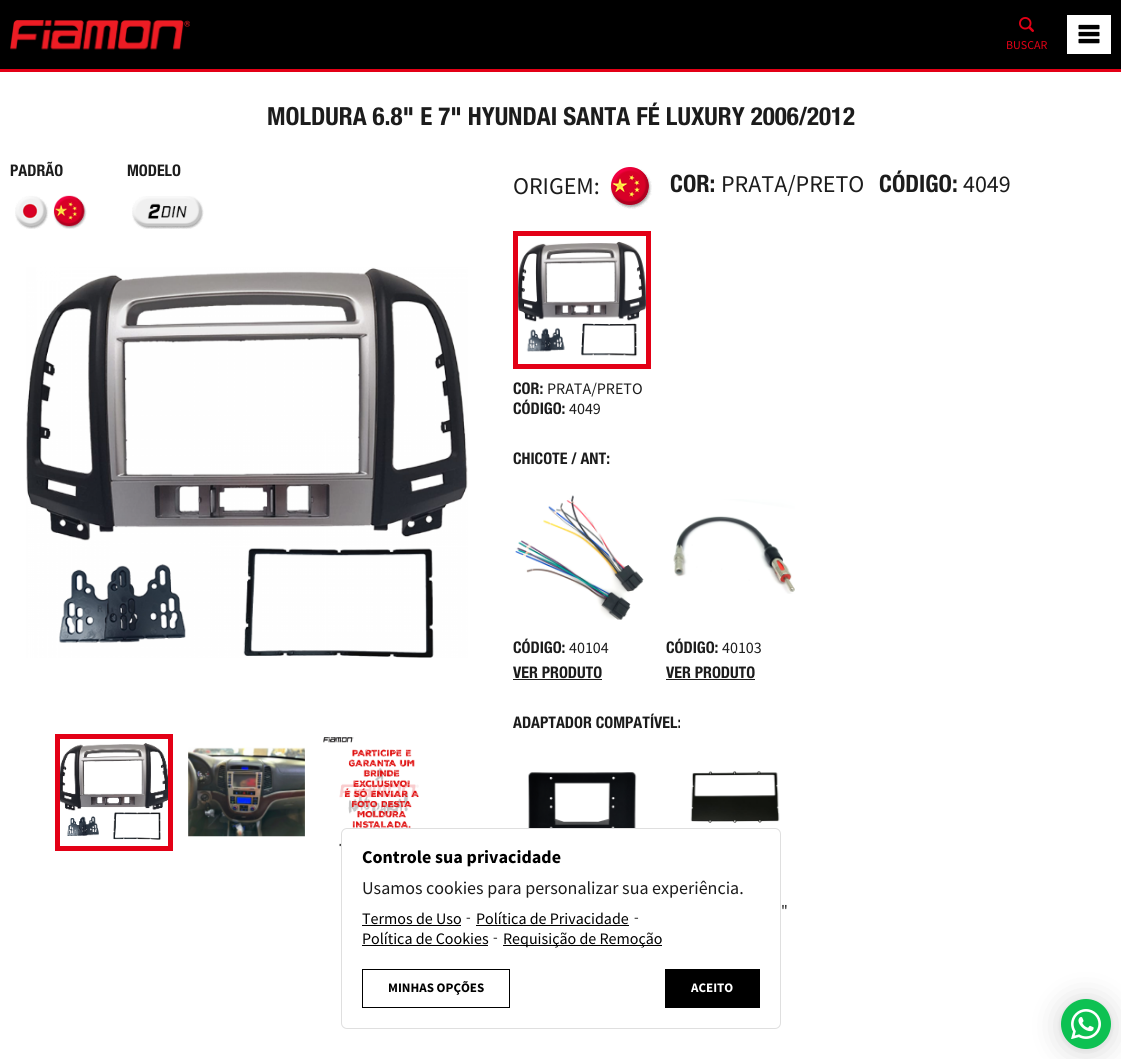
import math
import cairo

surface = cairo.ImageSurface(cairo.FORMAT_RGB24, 1121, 1059)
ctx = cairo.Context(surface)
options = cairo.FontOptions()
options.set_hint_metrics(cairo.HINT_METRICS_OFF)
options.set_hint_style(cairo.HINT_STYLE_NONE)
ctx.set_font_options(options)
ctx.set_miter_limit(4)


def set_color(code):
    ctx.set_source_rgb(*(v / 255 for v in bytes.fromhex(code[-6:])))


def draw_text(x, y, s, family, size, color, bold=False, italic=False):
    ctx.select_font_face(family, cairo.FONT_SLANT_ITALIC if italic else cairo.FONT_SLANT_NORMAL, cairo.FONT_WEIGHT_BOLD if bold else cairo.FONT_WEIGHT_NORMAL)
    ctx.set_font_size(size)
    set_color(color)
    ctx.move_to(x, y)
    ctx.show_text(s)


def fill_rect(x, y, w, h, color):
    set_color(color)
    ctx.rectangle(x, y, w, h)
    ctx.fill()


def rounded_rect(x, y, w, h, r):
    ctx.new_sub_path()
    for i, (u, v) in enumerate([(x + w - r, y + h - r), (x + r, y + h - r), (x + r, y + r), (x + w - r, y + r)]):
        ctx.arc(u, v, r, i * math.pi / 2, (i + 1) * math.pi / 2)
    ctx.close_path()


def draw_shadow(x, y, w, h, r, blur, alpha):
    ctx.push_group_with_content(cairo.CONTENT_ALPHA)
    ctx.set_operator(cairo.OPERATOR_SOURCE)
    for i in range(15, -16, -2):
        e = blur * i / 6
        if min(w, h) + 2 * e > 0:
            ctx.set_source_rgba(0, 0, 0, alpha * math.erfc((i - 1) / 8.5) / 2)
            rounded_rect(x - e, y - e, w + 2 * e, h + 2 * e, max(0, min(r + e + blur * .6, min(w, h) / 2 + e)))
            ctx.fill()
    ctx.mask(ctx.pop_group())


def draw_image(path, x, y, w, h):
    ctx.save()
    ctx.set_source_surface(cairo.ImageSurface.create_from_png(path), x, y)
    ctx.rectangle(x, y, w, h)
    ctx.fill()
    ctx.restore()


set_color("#ffffff")
ctx.paint()
fill_rect(0, 0, 1121, 69, "#000000")
fill_rect(0, 69, 1121, 3, "#e30016")
draw_image("assets/img1.png", 10, 20, 180, 30)
draw_image("assets/img2.png", 1019, 17, 15, 15)
draw_text(1006, 49, "BUSCAR", "Source Sans Pro", 12, "#e30016")
fill_rect(1067, 15, 44, 39, "#ffffff")
draw_image("assets/img3.png", 1078, 24, 22, 20)
draw_text(267, 125, "MOLDURA 6.8\" E 7\" HYUNDAI SANTA FÉ LUXURY 2006/2012", "Helvetica Neue", 25, "#1c1c1c", bold=True)
draw_text(10, 176, "PADRÃO", "Helvetica Neue", 16, "#1c1c1c", bold=True)
draw_image("assets/img4.png", 15, 195, 72, 34)
draw_text(127, 176, "MODELO", "Helvetica Neue", 16, "#1c1c1c", bold=True)
draw_image("assets/img5.png", 132, 196, 72, 33)
draw_image("assets/img6.png", 26, 267, 442, 391)
draw_image("assets/img7.png", 60, 743, 108, 97)
ctx.rectangle(57.5, 736.5, 113, 112)
set_color("#e30016")
ctx.set_line_width(5)
ctx.stroke()
draw_image("assets/img8.png", 188, 747, 117, 90)
draw_image("assets/img9.png", 323, 737, 107, 111)
draw_text(513, 194, "ORIGEM:", "Source Sans Pro", 24, "#1c1c1c")
draw_image("assets/img10.png", 610, 167, 42, 42)
draw_text(670, 192, "COR:", "Helvetica Neue", 24, "#1c1c1c", bold=True)
draw_text(721, 192, "PRATA/PRETO", "Source Sans Pro", 24, "#1c1c1c")
draw_text(879, 192, "CÓDIGO:", "Helvetica Neue", 24, "#1c1c1c", bold=True)
draw_text(963, 192, "4049", "Source Sans Pro", 24, "#1c1c1c")
draw_image("assets/img11.png", 518, 241, 128, 116)
ctx.rectangle(515.5, 233.5, 133, 133)
set_color("#e30016")
ctx.stroke()
draw_text(513, 394, "COR:", "Helvetica Neue", 16, "#1c1c1c", bold=True)
draw_text(547, 394, "PRATA/PRETO", "Source Sans Pro", 16, "#1c1c1c")
draw_text(513, 414, "CÓDIGO:", "Helvetica Neue", 16, "#1c1c1c", bold=True)
draw_text(569, 414, "4049", "Source Sans Pro", 16, "#1c1c1c")
draw_text(513, 464, "CHICOTE / ANT:", "Helvetica Neue", 16, "#1c1c1c", bold=True)
draw_image("assets/img12.png", 515, 495, 129, 125)
draw_text(513, 653, "CÓDIGO:", "Helvetica Neue", 16, "#1c1c1c", bold=True)
draw_text(569, 653, "40104", "Source Sans Pro", 16, "#1c1c1c")
draw_text(513, 678, "VER PRODUTO", "Helvetica Neue", 16, "#1c1c1c", bold=True)
fill_rect(513, 679, 89, 1, "#1c1c1c")
draw_image("assets/img13.png", 673, 499, 122, 95)
draw_text(666, 653, "CÓDIGO:", "Helvetica Neue", 16, "#1c1c1c", bold=True)
draw_text(722, 653, "40103", "Source Sans Pro", 16, "#1c1c1c")
draw_text(666, 678, "VER PRODUTO", "Helvetica Neue", 16, "#1c1c1c", bold=True)
fill_rect(666, 679, 89, 1, "#1c1c1c")
draw_text(513, 728, "ADAPTADOR COMPATÍVEL:", "Helvetica Neue", 16, "#1c1c1c", bold=True)
draw_image("assets/img14.png", 528, 772, 109, 56)
draw_image("assets/img15.png", 690, 771, 90, 60)
draw_text(781, 916, "\"", "Source Sans Pro", 16, "#1c1c1c")
set_color("#ffffff")
rounded_rect(341.5, 828.5, 439, 200, 5.5)
ctx.fill_preserve()
set_color("#dfdfdf")
ctx.set_line_width(1)
ctx.stroke()
draw_text(362, 863, "Controle sua privacidade", "Source Sans Pro", 18, "#000000", bold=True)
draw_text(362, 894, "Usamos cookies para personalizar sua experiência.", "Source Sans Pro", 18, "#1c1c1c")
draw_text(362, 924, "Termos de Uso", "Source Sans Pro", 16, "#000000")
fill_rect(362, 925, 99, 1, "#000000")
draw_text(466, 922, "-", "Source Sans Pro", 15, "#1c1c1c")
draw_text(476, 924, "Política de Privacidade", "Source Sans Pro", 16, "#000000")
fill_rect(476, 925, 153, 1, "#000000")
draw_text(634, 922, "-", "Source Sans Pro", 15, "#1c1c1c")
draw_text(362, 944, "Política de Cookies", "Source Sans Pro", 16, "#000000")
fill_rect(362, 945, 126, 1, "#000000")
draw_text(493, 942, "-", "Source Sans Pro", 15, "#1c1c1c")
fill_rect(503, 945, 159, 1, "#000000")
draw_text(503, 944, "Requisição de Remoção", "Source Sans Pro", 16, "#000000")
ctx.rectangle(362.5, 969.5, 147, 38)
ctx.stroke()
draw_text(388, 992, "MINHAS OPÇÕES", "Source Sans Pro", 13, "#000000", bold=True)
fill_rect(665, 969, 95, 39, "#000000")
draw_text(691, 992, "ACEITO", "Source Sans Pro", 13, "#ffffff", bold=True)
set_color("#000000")
draw_shadow(1061, 1001, 50, 50, 25, 16, 0.16)
draw_shadow(1061, 1000, 50, 50, 25, 3, 0.06)
set_color("#0dc152")
ctx.arc(1086, 1024, 25, 0, 2 * math.pi)
ctx.fill()
draw_image("assets/img16.png", 1071, 1009, 30, 30)
surface.write_to_png("output.png")
